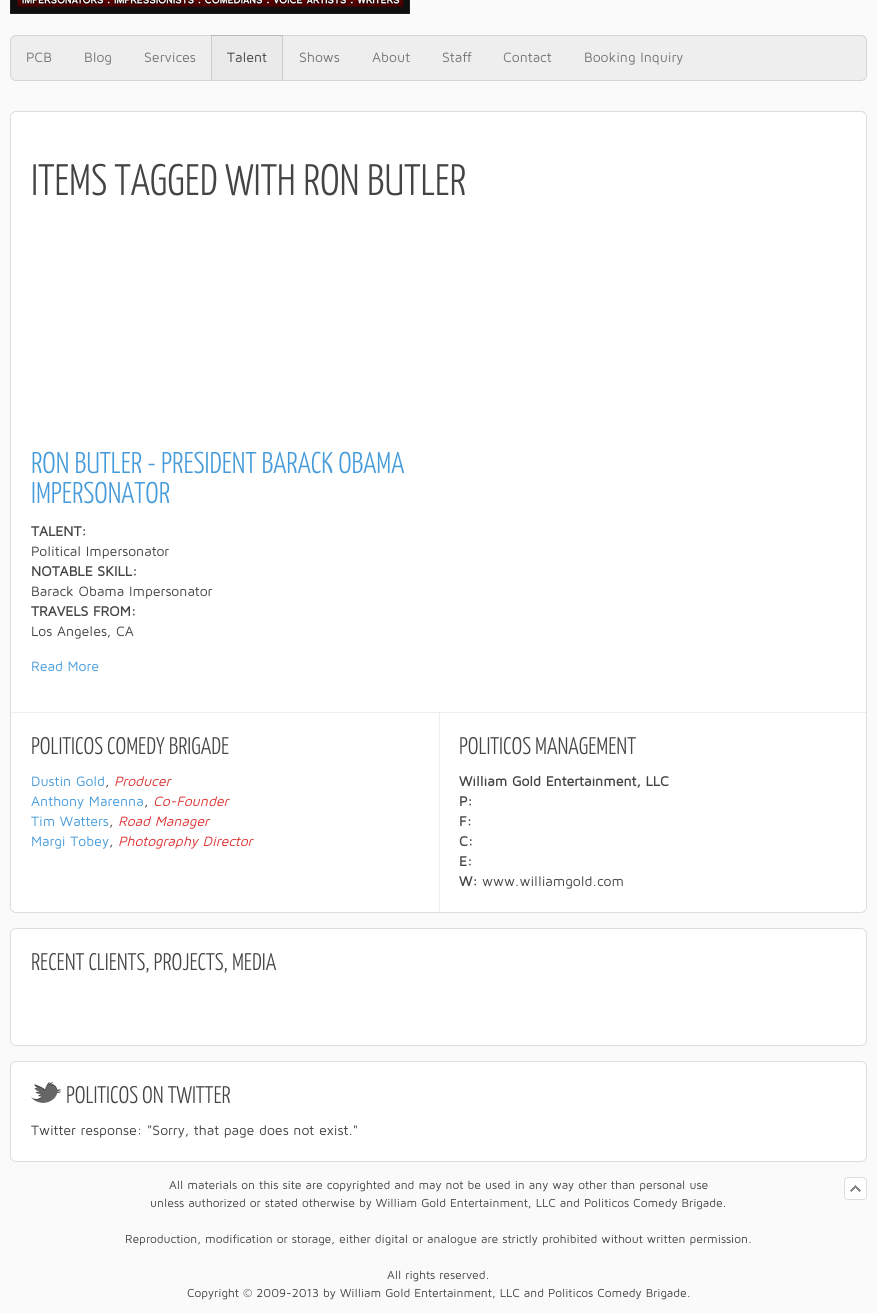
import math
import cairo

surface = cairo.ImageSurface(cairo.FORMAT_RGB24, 877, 1313)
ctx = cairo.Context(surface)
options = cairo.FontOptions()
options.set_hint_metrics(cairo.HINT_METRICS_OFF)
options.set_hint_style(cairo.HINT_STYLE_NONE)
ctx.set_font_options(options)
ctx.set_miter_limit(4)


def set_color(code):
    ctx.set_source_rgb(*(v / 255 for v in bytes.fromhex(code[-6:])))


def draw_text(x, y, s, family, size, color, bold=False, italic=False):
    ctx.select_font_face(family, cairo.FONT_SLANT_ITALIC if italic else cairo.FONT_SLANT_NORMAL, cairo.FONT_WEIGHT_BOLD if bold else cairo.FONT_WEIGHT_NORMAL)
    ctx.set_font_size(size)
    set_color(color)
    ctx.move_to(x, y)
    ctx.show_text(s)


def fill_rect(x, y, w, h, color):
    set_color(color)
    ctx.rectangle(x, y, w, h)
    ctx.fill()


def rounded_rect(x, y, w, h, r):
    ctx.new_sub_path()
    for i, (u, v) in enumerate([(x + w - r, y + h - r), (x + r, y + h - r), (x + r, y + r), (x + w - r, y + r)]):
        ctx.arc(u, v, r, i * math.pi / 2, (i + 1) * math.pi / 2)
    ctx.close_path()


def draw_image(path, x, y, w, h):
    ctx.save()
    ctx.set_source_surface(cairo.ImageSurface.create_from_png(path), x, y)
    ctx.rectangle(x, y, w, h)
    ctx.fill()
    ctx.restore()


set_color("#fafafa")
ctx.paint()
draw_image("assets/img1.png", 10, 0, 400, 14)
set_color("#eeeeee")
rounded_rect(10.5, 35.5, 856, 45, 5.5)
ctx.fill_preserve()
set_color("#d5d5d5")
ctx.set_line_width(1)
ctx.stroke()
draw_text(26, 62, "PCB", "Maven Pro", 14, "#777777")
draw_text(84, 62, "Blog", "Maven Pro", 14, "#777777")
draw_text(144, 62, "Services", "Maven Pro", 14, "#777777")
fill_rect(211, 35, 72, 1, "#bbbbbb")
fill_rect(212, 36, 70, 44, "#eaeaea")
fill_rect(282, 36, 1, 44, "#cccccc")
fill_rect(211, 36, 1, 44, "#cccccc")
draw_text(227, 62, "Talent", "Maven Pro", 14, "#444444")
draw_text(299, 62, "Shows", "Maven Pro", 14, "#777777")
draw_text(372, 62, "About", "Maven Pro", 14, "#777777")
draw_text(442, 62, "Staff", "Maven Pro", 14, "#777777")
draw_text(503, 62, "Contact", "Maven Pro", 14, "#777777")
draw_text(584, 62, "Booking Inquiry", "Maven Pro", 14, "#777777")
set_color("#ffffff")
rounded_rect(10.5, 111.5, 856, 801, 5.5)
ctx.fill_preserve()
set_color("#dddddd")
ctx.stroke()
draw_text(31, 195, "ITEMS TAGGED WITH RON BUTLER", "Yanone Kaffeesatz Light", 44, "#444444")
draw_text(31, 473, "RON BUTLER - PRESIDENT BARACK OBAMA", "Yanone Kaffeesatz Light", 30, "#469bdb")
draw_text(31, 503, "IMPERSONATOR", "Yanone Kaffeesatz Light", 30, "#469bdb")
draw_text(31, 536, "TALENT:", "Maven Pro", 14, "#444444", bold=True)
draw_text(31, 556, "Political Impersonator", "Maven Pro", 14, "#444444")
draw_text(31, 576, "NOTABLE SKILL:", "Maven Pro", 14, "#444444", bold=True)
draw_text(31, 596, "Barack Obama Impersonator", "Maven Pro", 14, "#444444")
draw_text(31, 616, "TRAVELS FROM:", "Maven Pro", 14, "#444444", bold=True)
draw_text(31, 636, "Los Angeles, CA", "Maven Pro", 14, "#444444")
draw_text(31, 671, "Read More", "Maven Pro", 14, "#469bdb")
fill_rect(11, 712, 855, 1, "#eeeeee")
draw_text(31, 754, "POLITICOS COMEDY BRIGADE", "Yanone Kaffeesatz Light", 24, "#444444")
draw_text(31, 786, "Dustin Gold", "Maven Pro", 14, "#469bdb")
draw_text(105, 786, ",", "Maven Pro", 14, "#444444")
draw_text(114, 786, "Producer", "Maven Pro", 14, "#dd3333", italic=True)
draw_text(31, 806, "Anthony Marenna", "Maven Pro", 14, "#469bdb")
draw_text(144, 806, ",", "Maven Pro", 14, "#444444")
draw_text(153, 806, "Co-Founder", "Maven Pro", 14, "#dd3333", italic=True)
draw_text(31, 826, "Tim Watters", "Maven Pro", 14, "#469bdb")
draw_text(109, 826, ",", "Maven Pro", 14, "#444444")
draw_text(118, 826, "Road Manager", "Maven Pro", 14, "#dd3333", italic=True)
draw_text(31, 846, "Margi Tobey", "Maven Pro", 14, "#469bdb")
draw_text(109, 846, ",", "Maven Pro", 14, "#444444")
draw_text(118, 846, "Photography Director", "Maven Pro", 14, "#dd3333", italic=True)
fill_rect(439, 713, 1, 199, "#eeeeee")
draw_text(459, 754, "POLITICOS MANAGEMENT", "Yanone Kaffeesatz Light", 24, "#444444")
draw_text(459, 786, "William Gold Entertainment, LLC", "Maven Pro", 14, "#444444", bold=True)
draw_text(459, 806, "P:", "Maven Pro", 14, "#444444", bold=True)
draw_text(459, 826, "F:", "Maven Pro", 14, "#444444", bold=True)
draw_text(459, 846, "C:", "Maven Pro", 14, "#444444", bold=True)
draw_text(459, 866, "E:", "Maven Pro", 14, "#444444", bold=True)
draw_text(459, 886, "W:", "Maven Pro", 14, "#444444", bold=True)
draw_text(482, 886, "www.williamgold.com", "Maven Pro", 14, "#444444")
set_color("#ffffff")
rounded_rect(10.5, 928.5, 856, 117, 5.5)
ctx.fill_preserve()
set_color("#dddddd")
ctx.stroke()
draw_text(31, 970, "RECENT CLIENTS, PROJECTS, MEDIA", "Yanone Kaffeesatz Light", 24, "#444444")
set_color("#ffffff")
rounded_rect(10.5, 1061.5, 856, 100, 5.5)
ctx.fill_preserve()
set_color("#dddddd")
ctx.stroke()
draw_image("assets/img2.png", 31, 1081, 30, 22)
draw_text(66, 1103, "POLITICOS ON TWITTER", "Yanone Kaffeesatz Light", 24, "#444444")
draw_text(31, 1135, "Twitter response: \"Sorry, that page does not exist.\"", "Maven Pro", 14, "#444444")
draw_text(169, 1189, "All materials on this site are copyrighted and may not be used in any way other than personal use", "Maven Pro", 12, "#444444")
draw_text(150, 1207, "unless authorized or stated otherwise by William Gold Entertainment, LLC and Politicos Comedy Brigade.", "Maven Pro", 12, "#444444")
draw_text(125, 1243, "Reproduction, modification or storage, either digital or analogue are strictly prohibited without written permission.", "Maven Pro", 12, "#444444")
draw_text(387, 1279, "All rights reserved.", "Maven Pro", 12, "#444444")
draw_text(187, 1297, "Copyright © 2009-2013 by William Gold Entertainment, LLC and Politicos Comedy Brigade.", "Maven Pro", 12, "#444444")
set_color("#ffffff")
rounded_rect(844, 1177, 23, 23, 4)
ctx.fill()
draw_image("assets/img3.png", 850, 1185, 11, 7)
rounded_rect(844.5, 1177.5, 22, 22, 3.5)
set_color("#dddddd")
ctx.stroke()
surface.write_to_png("output.png")
